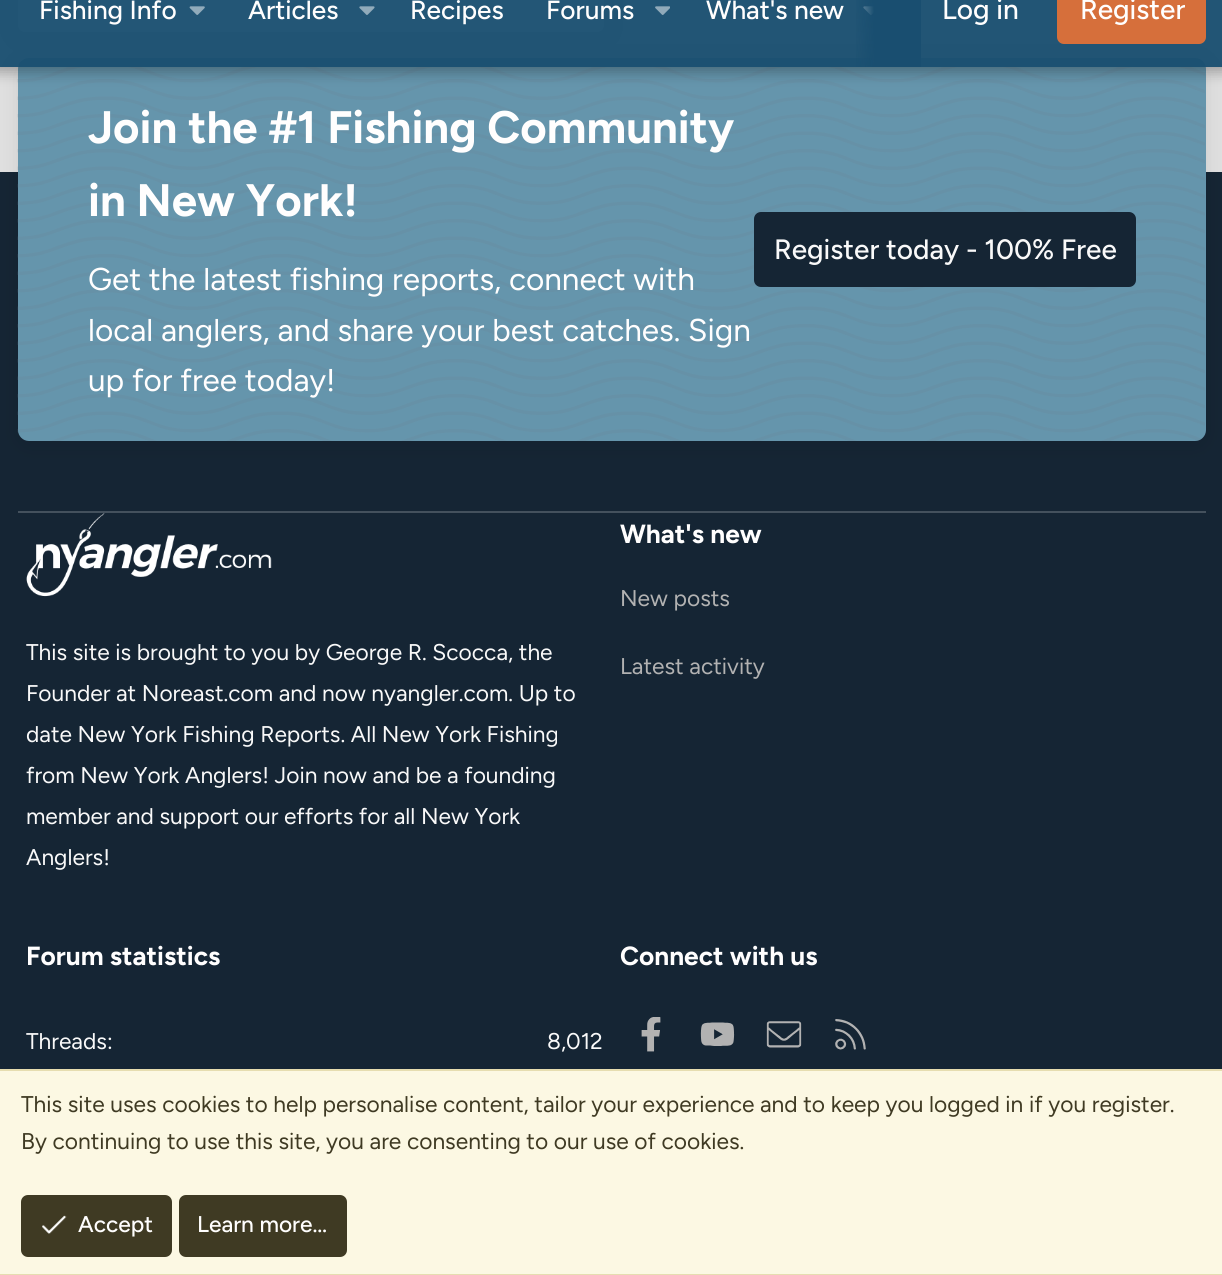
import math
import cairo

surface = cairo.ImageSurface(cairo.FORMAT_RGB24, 1222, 1275)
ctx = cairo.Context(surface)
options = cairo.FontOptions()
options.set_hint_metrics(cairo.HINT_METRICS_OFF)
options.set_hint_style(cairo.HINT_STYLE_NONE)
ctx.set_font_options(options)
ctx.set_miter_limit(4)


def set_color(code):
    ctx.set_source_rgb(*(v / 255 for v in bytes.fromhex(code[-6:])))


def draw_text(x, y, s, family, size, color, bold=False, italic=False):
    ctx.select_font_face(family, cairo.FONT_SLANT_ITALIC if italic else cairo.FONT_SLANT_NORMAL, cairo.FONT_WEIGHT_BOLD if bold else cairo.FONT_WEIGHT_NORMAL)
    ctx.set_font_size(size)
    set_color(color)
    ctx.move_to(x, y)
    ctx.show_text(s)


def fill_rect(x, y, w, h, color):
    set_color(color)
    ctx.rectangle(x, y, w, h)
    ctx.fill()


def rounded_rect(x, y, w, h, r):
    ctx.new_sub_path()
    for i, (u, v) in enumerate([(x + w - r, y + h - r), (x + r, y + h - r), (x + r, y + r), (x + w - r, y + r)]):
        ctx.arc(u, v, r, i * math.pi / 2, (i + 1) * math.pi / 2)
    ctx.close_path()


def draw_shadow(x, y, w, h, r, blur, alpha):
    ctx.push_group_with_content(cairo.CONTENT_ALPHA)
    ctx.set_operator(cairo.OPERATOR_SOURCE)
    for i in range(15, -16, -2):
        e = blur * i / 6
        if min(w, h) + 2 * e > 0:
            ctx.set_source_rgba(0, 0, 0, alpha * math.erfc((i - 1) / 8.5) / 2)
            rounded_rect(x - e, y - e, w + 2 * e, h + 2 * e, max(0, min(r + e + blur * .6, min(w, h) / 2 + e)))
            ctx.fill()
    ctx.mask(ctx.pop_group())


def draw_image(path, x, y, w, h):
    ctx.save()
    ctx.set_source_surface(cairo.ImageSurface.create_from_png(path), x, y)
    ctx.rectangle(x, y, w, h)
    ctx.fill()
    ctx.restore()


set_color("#e0e0e0")
ctx.paint()
set_color("#000000")
draw_shadow(18, -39, 586, 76, 7, 10.5, 0.09)
set_color("#fefefe")
rounded_rect(18, -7, 586, 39, 7)
ctx.fill()
fill_rect(0, 172, 1222, 897, "#152534")
set_color("#000000")
draw_shadow(18, 63, 1188, 383, 11, 10.5, 0.09)
set_color("#6595ac")
rounded_rect(18, 58, 1188, 383, 11)
ctx.fill()
draw_image("assets/img5.png", 17, 58, 1188, 383)
ctx.save()
ctx.set_fill_rule(cairo.FILL_RULE_EVEN_ODD)
ctx.new_path()
ctx.move_to(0, 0)
ctx.line_to(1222, 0)
ctx.line_to(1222, 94)
ctx.line_to(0, 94)
ctx.close_path()
ctx.move_to(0, -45)
ctx.line_to(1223, -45)
ctx.line_to(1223, 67)
ctx.line_to(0, 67)
ctx.close_path()
ctx.clip()
set_color("#000000")
draw_shadow(-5, -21, 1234, 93, 0, 7, 0.3)
ctx.restore()
ctx.set_source_rgba(0.098, 0.306, 0.439, 0.95)
ctx.rectangle(0, 0, 1222, 67)
ctx.fill()
draw_text(39, 19, "Fishing Info", "Figtree Medium", 26.25, "#fffefe")
draw_image("assets/img1.png", 189, 6, 16, 9)
draw_text(248, 19, "Articles", "Figtree Medium", 26.25, "#fffefe")
draw_image("assets/img2.png", 359, 6, 16, 9)
draw_text(410, 19, "Recipes", "Figtree Medium", 26.25, "#fffefe")
draw_text(546, 19, "Forums", "Figtree Medium", 26.25, "#fffefe")
draw_image("assets/img3.png", 655, 6, 15, 9)
draw_text(706, 19, "What's new", "Figtree Medium", 26.25, "#fffefe")
draw_image("assets/img4.png", 863, 6, 11, 9)
gradient = cairo.LinearGradient(851, 11, 921, 10)
gradient.add_color_stop_rgba(0, 0.098, 0.306, 0.439, 0)
gradient.add_color_stop_rgba(0.33, 0.098, 0.306, 0.439, 1)
ctx.set_source(gradient)
ctx.rectangle(856, 0, 65, 67)
ctx.fill()
draw_text(942, 19, "Log in", "Figtree Medium", 28, "#fffefe")
set_color("#d66f3b")
rounded_rect(1057, -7, 149, 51, 7)
ctx.fill()
draw_text(1080, 19, "Register", "Figtree Medium", 28, "#fffefe")
fill_rect(18, 511, 1188, 2, "#44515d")
draw_text(88, 143, "Join the #1 Fishing Community", "Figtree", 45.5, "#fffefe", bold=True)
draw_text(88, 216, "in New York!", "Figtree", 45.5, "#fffefe", bold=True)
draw_text(88, 290, "Get the latest fishing reports, connect with", "Figtree", 31.5, "#fffefe")
draw_text(88, 341, "local anglers, and share your best catches. Sign", "Figtree", 31.5, "#fffefe")
draw_text(88, 391, "up for free today!", "Figtree", 31.5, "#fffefe")
set_color("#152534")
rounded_rect(755, 213, 380, 73, 6)
ctx.fill_preserve()
ctx.stroke()
draw_text(774, 259, "Register today - 100% Free", "Figtree Medium", 28, "#f9f9f9")
draw_text(620, 543, "What's new", "Figtree", 26.25, "#fffefe", bold=True)
draw_text(620, 606, "New posts", "Figtree", 22.75, "#b2b2b2")
draw_text(620, 674, "Latest activity", "Figtree", 22.75, "#b2b2b2")
draw_image("assets/img6.png", 26, 513, 246, 84)
draw_text(26, 660, "This site is brought to you by George R. Scocca, the", "Figtree", 22.75, "#f9f9f9")
draw_text(26, 701, "Founder at Noreast.com and now nyangler.com. Up to", "Figtree", 22.75, "#f9f9f9")
draw_text(26, 742, "date New York Fishing Reports. All New York Fishing", "Figtree", 22.75, "#f9f9f9")
draw_text(26, 783, "from New York Anglers! Join now and be a founding", "Figtree", 22.75, "#f9f9f9")
draw_text(26, 824, "member and support our efforts for all New York", "Figtree", 22.75, "#f9f9f9")
draw_text(26, 865, "Anglers!", "Figtree", 22.75, "#f9f9f9")
draw_text(26, 965, "Forum statistics", "Figtree", 26.25, "#fffefe", bold=True)
draw_text(26, 1049, "Threads:", "Figtree", 22.75, "#f9f9f9")
draw_text(547, 1049, "8,012", "Figtree", 22.75, "#f9f9f9")
draw_text(620, 965, "Connect with us", "Figtree", 26.25, "#fffefe", bold=True)
draw_image("assets/img7.png", 641, 1017, 20, 35)
draw_image("assets/img8.png", 700, 1022, 35, 24)
draw_image("assets/img9.png", 766, 1021, 36, 27)
draw_image("assets/img10.png", 835, 1019, 31, 31)
fill_rect(0, 1071, 1222, 203, "#fcf8e3")
fill_rect(0, 1069, 1222, 2, "#e6ddb0")
fill_rect(0, 1274, 1222, 1, "#e6ddb0")
draw_text(21, 1112, "This site uses cookies to help personalise content, tailor your experience and to keep you logged in if you register.", "Figtree", 22.75, "#3f3a23")
draw_text(21, 1149, "By continuing to use this site, you are consenting to our use of cookies.", "Figtree", 22.75, "#3f3a23")
rounded_rect(22, 1196, 149, 60, 6)
ctx.fill_preserve()
ctx.stroke()
draw_image("assets/img11.png", 42, 1215, 25, 19)
draw_text(78, 1232, "Accept", "Figtree Medium", 22.75, "#fffefe")
set_color("#3f3a23")
rounded_rect(180, 1196, 166, 60, 6)
ctx.fill_preserve()
ctx.stroke()
draw_text(197, 1232, "Learn more…", "Figtree Medium", 22.75, "#fffefe")
surface.write_to_png("output.png")
